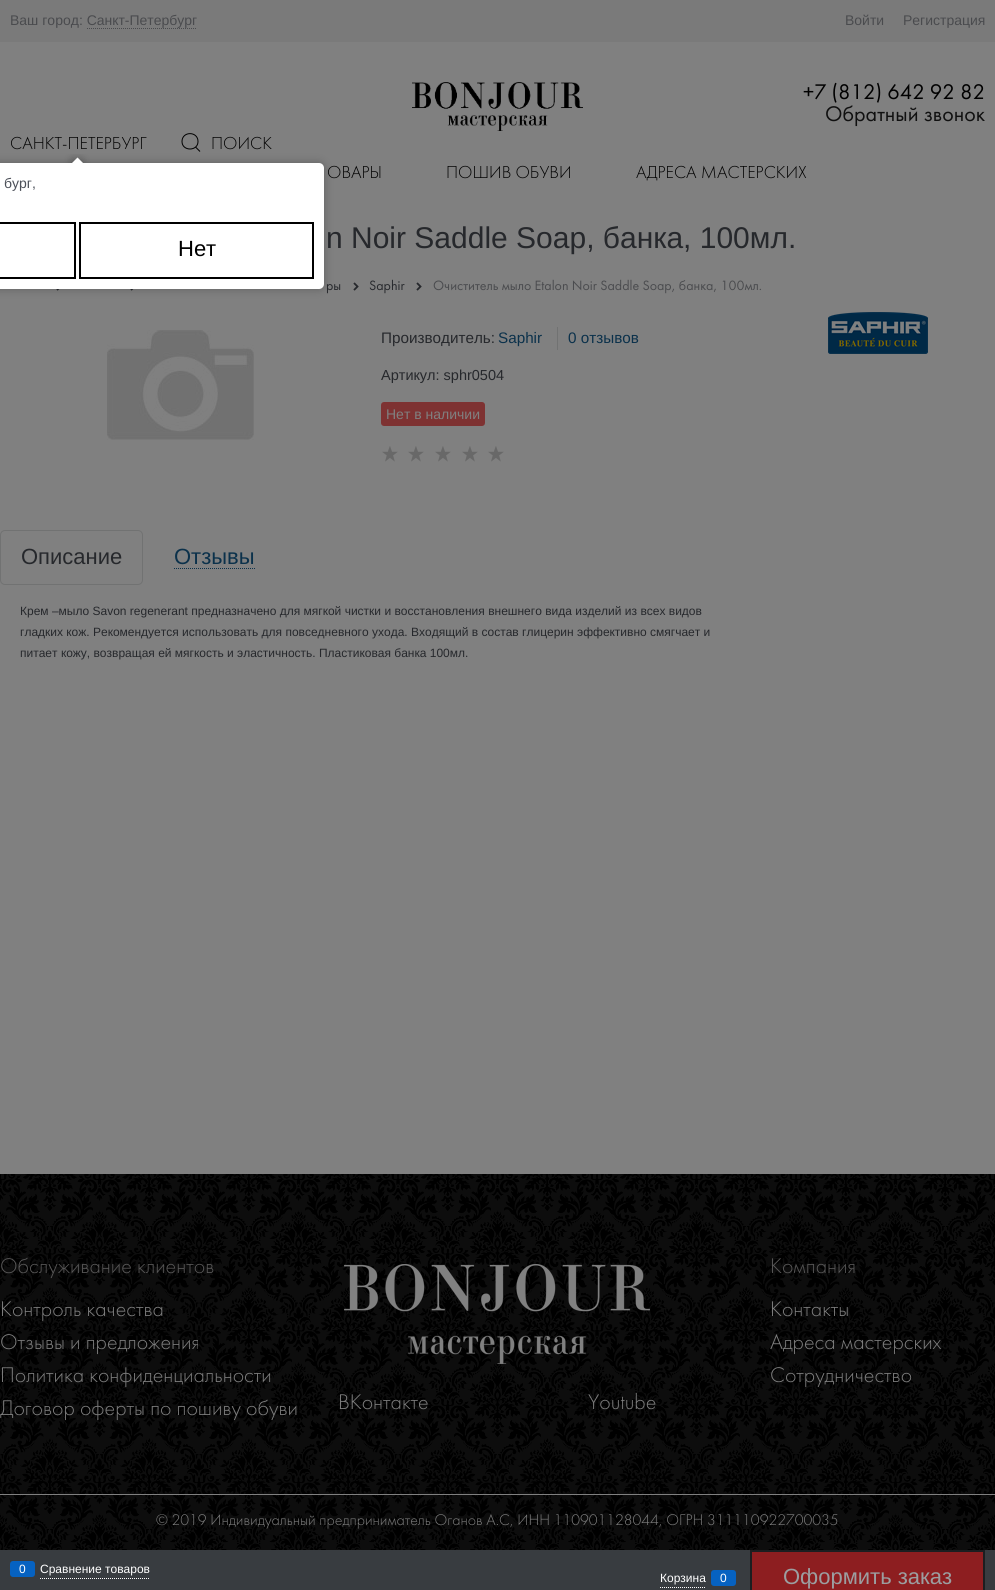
import math
import cairo

surface = cairo.ImageSurface(cairo.FORMAT_RGB24, 995, 1590)
ctx = cairo.Context(surface)
options = cairo.FontOptions()
options.set_hint_metrics(cairo.HINT_METRICS_OFF)
options.set_hint_style(cairo.HINT_STYLE_NONE)
ctx.set_font_options(options)
ctx.set_miter_limit(4)


def set_color(code):
    ctx.set_source_rgb(*(v / 255 for v in bytes.fromhex(code[-6:])))


def draw_text(x, y, s, family, size, color, bold=False, italic=False):
    ctx.select_font_face(family, cairo.FONT_SLANT_ITALIC if italic else cairo.FONT_SLANT_NORMAL, cairo.FONT_WEIGHT_BOLD if bold else cairo.FONT_WEIGHT_NORMAL)
    ctx.set_font_size(size)
    set_color(color)
    ctx.move_to(x, y)
    ctx.show_text(s)


def fill_rect(x, y, w, h, color):
    set_color(color)
    ctx.rectangle(x, y, w, h)
    ctx.fill()


def rounded_rect(x, y, w, h, r):
    ctx.new_sub_path()
    for i, (u, v) in enumerate([(x + w - r, y + h - r), (x + r, y + h - r), (x + r, y + r), (x + w - r, y + r)]):
        ctx.arc(u, v, r, i * math.pi / 2, (i + 1) * math.pi / 2)
    ctx.close_path()


def draw_shadow(x, y, w, h, r, blur, alpha):
    ctx.push_group_with_content(cairo.CONTENT_ALPHA)
    ctx.set_operator(cairo.OPERATOR_SOURCE)
    for i in range(15, -16, -2):
        e = blur * i / 6
        if min(w, h) + 2 * e > 0:
            ctx.set_source_rgba(0, 0, 0, alpha * math.erfc((i - 1) / 8.5) / 2)
            rounded_rect(x - e, y - e, w + 2 * e, h + 2 * e, max(0, min(r + e + blur * .6, min(w, h) / 2 + e)))
            ctx.fill()
    ctx.mask(ctx.pop_group())


def draw_image(path, x, y, w, h):
    ctx.save()
    ctx.set_source_surface(cairo.ImageSurface.create_from_png(path), x, y)
    ctx.rectangle(x, y, w, h)
    ctx.fill()
    ctx.restore()


set_color("#808080")
ctx.paint()
fill_rect(0, 0, 995, 42, "#7a7a7a")
draw_text(10, 25, "Ваш город: Санкт-Петербург", "Liberation Sans", 14, "#4a4b4e")
ctx.new_path()
ctx.move_to(87, 28.5)
ctx.line_to(197, 28.5)
ctx.set_line_width(1)
ctx.set_dash([1, 1])
ctx.stroke()
draw_text(845, 25, "Войти", "Liberation Sans", 14, "#4a4b4e")
draw_text(903, 25, "Регистрация", "Liberation Sans", 14, "#4a4b4e")
draw_image("assets/img1.png", 412, 82, 171, 49)
draw_text(803, 99, "+7 (812) 642 92 82", "Futura PT", 22, "#000000")
draw_text(825, 121, "Обратный звонок", "Futura PT", 22, "#101010")
draw_text(10, 149, "САНКТ-ПЕТЕРБУРГ", "Futura PT Light", 18, "#000000")
ctx.new_path()
ctx.move_to(182, 141.5)
ctx.curve_to(182, 131, 198, 131, 198, 141.5)
ctx.curve_to(198, 151.5, 182, 151.5, 182, 141.5)
ctx.close_path()
ctx.move_to(200, 151.5)
ctx.line_to(195.5, 147)
ctx.set_dash([])
ctx.stroke()
draw_text(211, 149, "ПОИСК", "Futura PT Light", 18, "#000000")
draw_text(327, 178, "ОВАРЫ", "Futura PT Light", 18, "#000000")
draw_text(446, 178, "ПОШИВ ОБУВИ", "Futura PT Light", 18, "#000000")
draw_text(636, 178, "АДРЕСА МАСТЕРСКИХ", "Futura PT Light", 18, "#000000")
draw_text(326, 248, "n Noir Saddle Soap, банка, 100мл.", "Liberation Sans", 30, "#26282c")
draw_image("assets/img2.png", 56, 289, 4, 2)
draw_image("assets/img2.png", 130, 289, 4, 2)
draw_text(326, 290, "ры", "Futura PT", 14, "#26282c")
draw_image("assets/img3.png", 353, 282, 6, 9)
draw_text(369, 290, "Saphir", "Futura PT", 14, "#26282c")
draw_image("assets/img3.png", 416, 282, 6, 9)
draw_text(433, 290, "Очиститель мыло Etalon Noir Saddle Soap, банка, 100мл.", "Futura PT", 14, "#4a4b4e")
draw_image("assets/img4.png", 107, 330, 147, 110)
draw_text(381, 343, "Производитель:", "Liberation Sans", 15.25, "#26282c")
draw_text(498, 343, "Saphir", "Liberation Sans", 15.25, "#0b314b")
fill_rect(557, 327, 1, 23, "#717272")
draw_text(568, 343, "0 отзывов", "Liberation Sans", 15.25, "#0b314b")
draw_text(381, 380, "Артикул: sphr0504", "Liberation Sans", 14.5, "#26282c")
set_color("#7e3232")
rounded_rect(381, 402, 104, 24, 3)
ctx.fill()
draw_text(386, 419, "Нет в наличии", "Liberation Sans", 14, "#808080")
draw_image("assets/img5.png", 382, 446, 16, 16)
draw_image("assets/img5.png", 408, 446, 16, 16)
draw_image("assets/img5.png", 435, 446, 16, 16)
draw_image("assets/img5.png", 462, 446, 16, 16)
draw_image("assets/img5.png", 488, 446, 16, 16)
rounded_rect(0.5, 530.5, 142, 54, 4.5)
set_color("#717272")
ctx.stroke()
draw_text(21, 564, "Описание", "Liberation Sans", 22, "#26282c")
ctx.new_path()
ctx.move_to(174, 568.5)
ctx.line_to(255, 568.5)
set_color("#0b314b")
ctx.set_dash([1, 1])
ctx.stroke()
draw_text(174, 564, "Отзывы", "Liberation Sans", 22, "#0b314b")
draw_text(20, 615, "Крем –мыло Savon regenerant предназначено для мягкой чистки и восстановления внешнего вида изделий из всех видов", "Liberation Sans", 12, "#26282c")
draw_text(20, 636, "гладких кож. Рекомендуется использовать для повседневного ухода. Входящий в состав глицерин эффективно смягчает и", "Liberation Sans", 12, "#26282c")
draw_text(20, 657, "питает кожу, возвращая ей мягкость и эластичность. Пластиковая банка 100мл.", "Liberation Sans", 12, "#26282c")
draw_image("assets/img6.png", 828, 312, 100, 42)
fill_rect(0, 1174, 995, 376, "#0d0d0d")
draw_image("assets/img7.png", 0, 1174, 995, 376)
draw_text(0, 1273, "Обслуживание клиентов", "Futura PT Light", 22, "#595858")
draw_text(0, 1316, "Контроль качества", "Futura PT Light", 22, "#808080")
draw_text(0, 1349, "Отзывы и предложения", "Futura PT Light", 22, "#808080")
draw_text(0, 1382, "Политика конфиденциальности", "Futura PT Light", 22, "#808080")
draw_text(0, 1415, "Договор оферты по пошиву обуви", "Futura PT Light", 22, "#808080")
draw_text(770, 1273, "Компания", "Futura PT Light", 22, "#595858")
draw_text(770, 1316, "Контакты", "Futura PT Light", 22, "#808080")
draw_text(770, 1349, "Адреса мастерских", "Futura PT Light", 22, "#808080")
draw_text(770, 1382, "Сотрудничество", "Futura PT Light", 22, "#808080")
draw_image("assets/img8.png", 344, 1264, 306, 100)
draw_text(338, 1409, "ВКонтакте", "Futura PT Light", 22, "#808080")
draw_text(588, 1409, "Youtube", "Futura PT Light", 22, "#808080")
fill_rect(0, 1494, 995, 1, "#808080")
draw_text(156, 1525, "© 2019 Индивидуальный предприниматель Оганов А.С, ИНН 110901128044, ОГРН 311110922700035", "Futura PT Light", 16, "#808080")
fill_rect(0, 1550, 995, 40, "#383c40")
ctx.new_path()
ctx.move_to(40, 1578.5)
ctx.line_to(150, 1578.5)
set_color("#ffffff")
ctx.stroke()
set_color("#0662c1")
rounded_rect(10, 1561, 25, 16, 3)
ctx.fill()
draw_text(19, 1573, "0", "Liberation Sans", 12, "#ffffff")
draw_text(40, 1573, "Сравнение товаров", "Liberation Sans", 12, "#ffffff")
ctx.new_path()
ctx.move_to(660, 1587.5)
ctx.line_to(706, 1587.5)
ctx.stroke()
draw_text(660, 1582, "Корзина", "Liberation Sans", 12, "#ffffff")
set_color("#0662c1")
rounded_rect(711, 1570, 25, 16, 3)
ctx.fill()
draw_text(720, 1582, "0", "Liberation Sans", 12, "#ffffff")
set_color("#8d1e20")
ctx.rectangle(751, 1551, 233, 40)
ctx.fill_preserve()
set_color("#1c1e20")
ctx.set_line_width(2)
ctx.set_dash([])
ctx.stroke()
draw_text(783, 1584, "Оформить заказ", "Liberation Sans", 22, "#9c9ea0")
set_color("#000000")
draw_shadow(-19, 163, 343, 126, 5, 4.5, 0.25)
set_color("#ffffff")
rounded_rect(-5, 163, 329, 126, 5)
ctx.fill()
ctx.save()
ctx.rectangle(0, 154, 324, 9)
ctx.clip()
set_color("#000000")
draw_shadow(72, 159, 10, 10, 0, 4.5, 0.25)
ctx.restore()
ctx.save()
ctx.rectangle(0, 154, 324, 9)
ctx.clip()
ctx.new_path()
ctx.move_to(77.5, 157.5)
ctx.line_to(84.5, 164.5)
ctx.line_to(77.5, 171.5)
ctx.line_to(70.5, 164.5)
ctx.close_path()
ctx.fill()
ctx.restore()
draw_text(4, 188, "бург,", "Liberation Sans", 14, "#4b4f58")
ctx.rectangle(-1, 223, 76, 55)
set_color("#000000")
ctx.stroke()
ctx.rectangle(80, 223, 233, 55)
ctx.stroke()
draw_text(178, 256, "Нет", "Liberation Sans", 22, "#000000")
surface.write_to_png("output.png")
